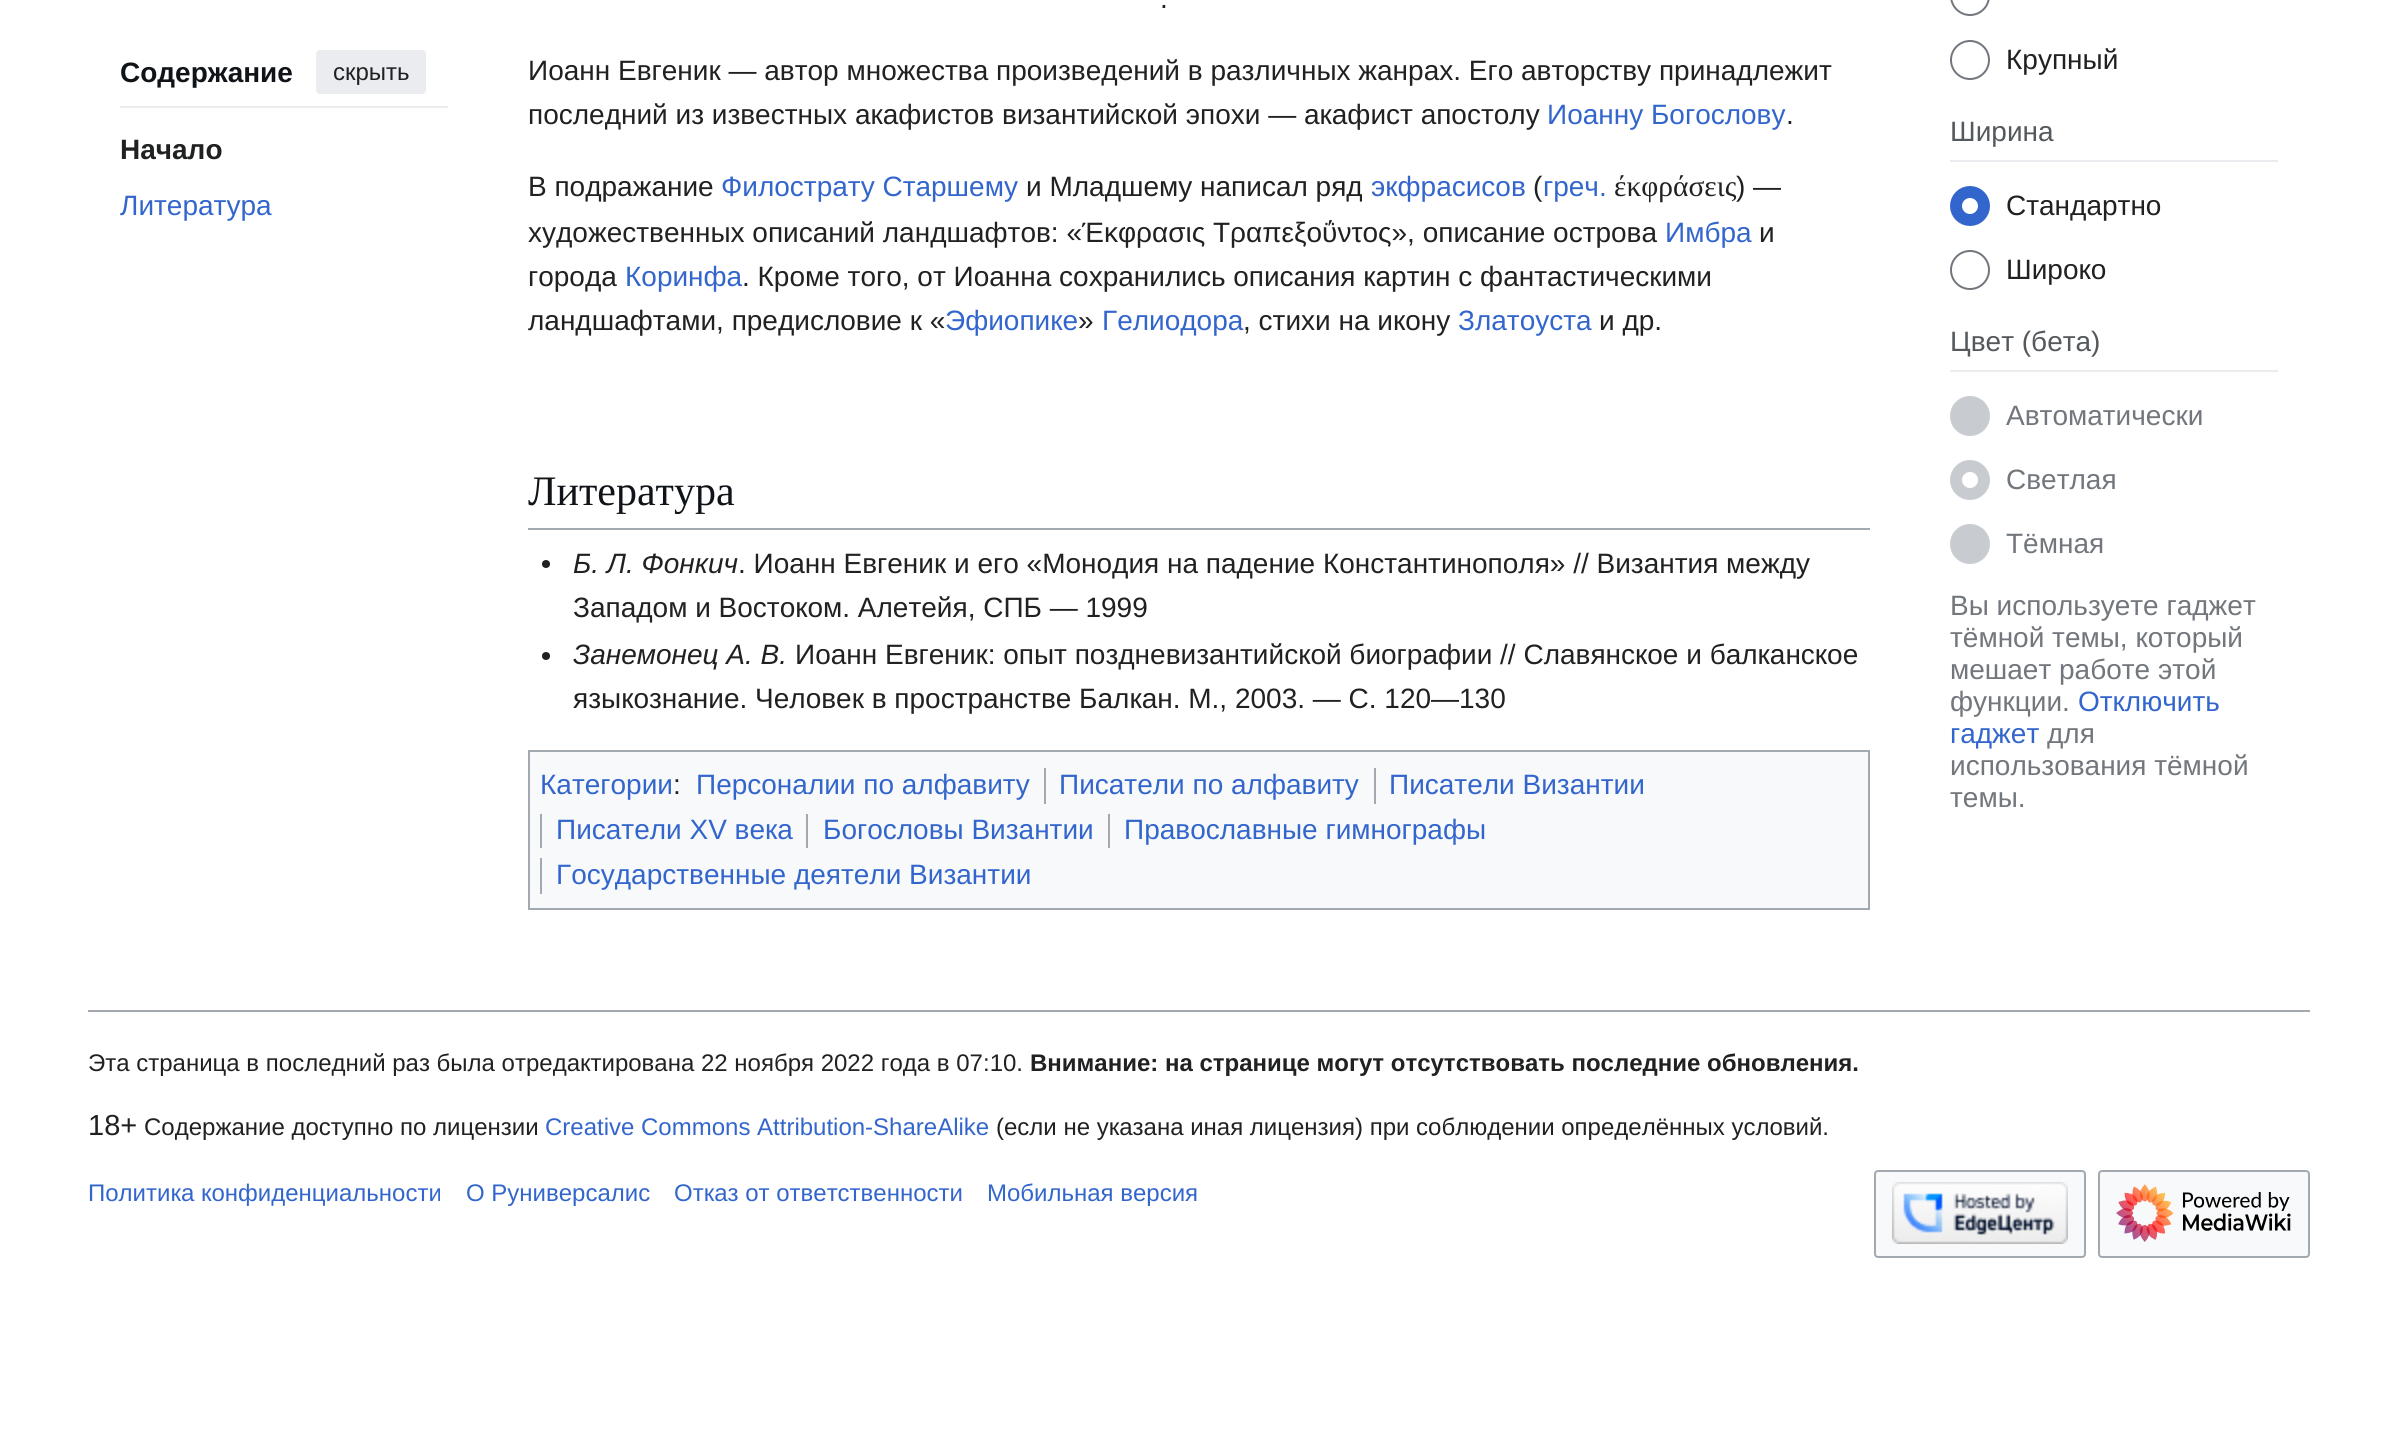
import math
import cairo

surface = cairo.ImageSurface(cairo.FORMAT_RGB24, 2397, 1435)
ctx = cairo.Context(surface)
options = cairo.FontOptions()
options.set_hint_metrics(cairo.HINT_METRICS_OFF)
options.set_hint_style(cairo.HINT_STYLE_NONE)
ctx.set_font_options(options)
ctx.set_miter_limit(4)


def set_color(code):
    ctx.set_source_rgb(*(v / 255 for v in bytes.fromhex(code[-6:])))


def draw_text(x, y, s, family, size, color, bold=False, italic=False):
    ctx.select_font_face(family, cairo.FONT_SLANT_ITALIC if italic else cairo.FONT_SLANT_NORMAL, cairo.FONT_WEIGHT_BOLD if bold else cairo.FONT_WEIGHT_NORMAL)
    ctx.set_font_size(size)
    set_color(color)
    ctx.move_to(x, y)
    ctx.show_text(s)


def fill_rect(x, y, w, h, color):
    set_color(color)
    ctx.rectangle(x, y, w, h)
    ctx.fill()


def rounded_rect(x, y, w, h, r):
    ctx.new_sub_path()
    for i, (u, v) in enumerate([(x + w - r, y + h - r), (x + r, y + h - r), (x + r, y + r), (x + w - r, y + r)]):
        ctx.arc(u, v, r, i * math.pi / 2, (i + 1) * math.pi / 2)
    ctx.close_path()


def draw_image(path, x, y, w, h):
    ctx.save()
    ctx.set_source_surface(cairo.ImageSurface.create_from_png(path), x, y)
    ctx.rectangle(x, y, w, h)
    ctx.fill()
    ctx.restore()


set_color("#ffffff")
ctx.paint()
fill_rect(120, 106, 328, 2, "#eaecf0")
draw_text(120, 82, "Содержание", "Liberation Sans", 28, "#101418", bold=True)
set_color("#eaecf0")
rounded_rect(316, 50, 110, 44, 4)
ctx.fill()
draw_text(333, 80, "скрыть", "Liberation Sans", 24, "#202122")
draw_text(120, 159, "Начало", "Liberation Sans", 28, "#202122", bold=True)
draw_text(120, 215, "Литература", "Liberation Sans", 28, "#3366cc")
draw_text(1160, 8, ".", "Liberation Sans", 28, "#202122")
draw_text(528, 80, "Иоанн Евгеник — автор множества произведений в различных жанрах. Его авторству принадлежит", "Liberation Sans", 28, "#202122")
draw_text(528, 124, "последний из известных акафистов византийской эпохи — акафист апостолу", "Liberation Sans", 28, "#202122")
draw_text(1547, 124, "Иоанну Богослову", "Liberation Sans", 28, "#3366cc")
draw_text(1786, 124, ".", "Liberation Sans", 28, "#202122")
draw_text(528, 196, "В подражание", "Liberation Sans", 28, "#202122")
draw_text(721, 196, "Филострату Старшему", "Liberation Sans", 28, "#3366cc")
draw_text(1026, 196, "и Младшему написал ряд", "Liberation Sans", 28, "#202122")
draw_text(1371, 196, "экфрасисов", "Liberation Sans", 28, "#3366cc")
draw_text(1533, 196, "(", "Liberation Sans", 28, "#202122")
draw_text(1543, 196, "греч.", "Liberation Sans", 28, "#3366cc")
draw_text(1614, 196, "έκφράσεις", "Liberation Serif", 29.5, "#202122")
draw_text(1736, 196, ") —", "Liberation Sans", 28, "#202122")
draw_text(528, 242, "художественных описаний ландшафтов: «Έκφρασις Τραπεξοΰντος», описание острова", "Liberation Sans", 28, "#202122")
draw_text(1665, 242, "Имбра", "Liberation Sans", 28, "#3366cc")
draw_text(1759, 242, "и", "Liberation Sans", 28, "#202122")
draw_text(528, 286, "города", "Liberation Sans", 28, "#202122")
draw_text(625, 286, "Коринфа", "Liberation Sans", 28, "#3366cc")
draw_text(742, 286, ". Кроме того, от Иоанна сохранились описания картин с фантастическими", "Liberation Sans", 28, "#202122")
draw_text(528, 330, "ландшафтами, предисловие к «", "Liberation Sans", 28, "#202122")
draw_text(945, 330, "Эфиопике", "Liberation Sans", 28, "#3366cc")
draw_text(1078, 330, "»", "Liberation Sans", 28, "#202122")
draw_text(1102, 330, "Гелиодора", "Liberation Sans", 28, "#3366cc")
draw_text(1243, 330, ", стихи на икону", "Liberation Sans", 28, "#202122")
draw_text(1458, 330, "Златоуста", "Liberation Sans", 28, "#3366cc")
draw_text(1599, 330, "и др.", "Liberation Sans", 28, "#202122")
fill_rect(528, 528, 1342, 2, "#a2a9b1")
draw_text(528, 505, "Литература", "Liberation Serif", 42, "#101418")
set_color("#202122")
ctx.new_path()
ctx.arc(546, 564, 4, 0, 2 * math.pi)
ctx.fill()
draw_text(573, 573, "Б. Л. Фонкич", "Liberation Sans", 28, "#202122", italic=True)
draw_text(738, 573, ". Иоанн Евгеник и его «Монодия на падение Константинополя» // Византия между", "Liberation Sans", 28, "#202122")
draw_text(573, 617, "Западом и Востоком. Алетейя, СПБ — 1999", "Liberation Sans", 28, "#202122")
ctx.new_path()
ctx.arc(546, 656, 4, 0, 2 * math.pi)
ctx.fill()
draw_text(573, 664, "Занемонец А. В.", "Liberation Sans", 28, "#202122", italic=True)
draw_text(795, 664, "Иоанн Евгеник: опыт поздневизантийской биографии // Славянское и балканское", "Liberation Sans", 28, "#202122")
draw_text(573, 708, "языкознание. Человек в пространстве Балкан. М., 2003. — С. 120—130", "Liberation Sans", 28, "#202122")
set_color("#f8f9fa")
ctx.rectangle(529, 751, 1340, 158)
ctx.fill_preserve()
set_color("#a2a9b1")
ctx.stroke()
draw_text(696, 794, "Персоналии по алфавиту", "Liberation Sans", 28, "#3366cc")
fill_rect(1044, 768, 2, 36, "#a2a9b1")
draw_text(1059, 794, "Писатели по алфавиту", "Liberation Sans", 28, "#3366cc")
fill_rect(1374, 768, 2, 36, "#a2a9b1")
draw_text(1389, 794, "Писатели Византии", "Liberation Sans", 28, "#3366cc")
fill_rect(540, 814, 2, 34, "#a2a9b1")
draw_text(556, 839, "Писатели XV века", "Liberation Sans", 28, "#3366cc")
fill_rect(806, 814, 2, 34, "#a2a9b1")
draw_text(823, 839, "Богословы Византии", "Liberation Sans", 28, "#3366cc")
fill_rect(1108, 814, 2, 34, "#a2a9b1")
draw_text(1124, 839, "Православные гимнографы", "Liberation Sans", 28, "#3366cc")
fill_rect(540, 858, 2, 36, "#a2a9b1")
draw_text(556, 884, "Государственные деятели Византии", "Liberation Sans", 28, "#3366cc")
draw_text(540, 794, "Категории", "Liberation Sans", 28, "#3366cc")
draw_text(673, 794, ":", "Liberation Sans", 28, "#202122")
rounded_rect(1951, -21, 38, 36, 19)
set_color("#72777d")
ctx.stroke()
ctx.arc(1970, 60, 19, 0, 2 * math.pi)
ctx.stroke()
draw_text(2006, 69, "Крупный", "Liberation Sans", 28, "#202122")
fill_rect(1950, 160, 328, 2, "#eaecf0")
draw_text(1950, 141, "Ширина", "Liberation Sans", 28, "#54595d")
ctx.new_path()
ctx.arc(1970, 206, 14, 0, 2 * math.pi)
set_color("#3366cc")
ctx.set_line_width(12)
ctx.stroke()
draw_text(2006, 215, "Стандартно", "Liberation Sans", 28, "#202122")
ctx.new_path()
ctx.arc(1970, 270, 19, 0, 2 * math.pi)
set_color("#72777d")
ctx.set_line_width(2)
ctx.stroke()
draw_text(2006, 279, "Широко", "Liberation Sans", 28, "#202122")
fill_rect(1950, 370, 328, 2, "#eaecf0")
draw_text(1950, 351, "Цвет (бета)", "Liberation Sans", 28, "#54595d")
set_color("#c8ccd1")
ctx.new_path()
ctx.arc(1970, 416, 19, 0, 2 * math.pi)
ctx.fill_preserve()
ctx.stroke()
draw_text(2006, 425, "Автоматически", "Liberation Sans", 28, "#72777d")
ctx.new_path()
ctx.arc(1970, 480, 14, 0, 2 * math.pi)
set_color("#c8ccd1")
ctx.set_line_width(12)
ctx.stroke()
draw_text(2006, 489, "Светлая", "Liberation Sans", 28, "#72777d")
set_color("#c8ccd1")
ctx.new_path()
ctx.arc(1970, 544, 19, 0, 2 * math.pi)
ctx.fill_preserve()
ctx.set_line_width(2)
ctx.stroke()
draw_text(2006, 553, "Тёмная", "Liberation Sans", 28, "#72777d")
draw_text(1950, 615, "Вы используете гаджет", "Liberation Sans", 28, "#72777d")
draw_text(1950, 647, "тёмной темы, который", "Liberation Sans", 28, "#72777d")
draw_text(1950, 679, "мешает работе этой", "Liberation Sans", 28, "#72777d")
draw_text(1950, 711, "функции.", "Liberation Sans", 28, "#72777d")
draw_text(2078, 711, "Отключить", "Liberation Sans", 28, "#3366cc")
draw_text(1950, 743, "гаджет", "Liberation Sans", 28, "#3366cc")
draw_text(2047, 743, "для", "Liberation Sans", 28, "#72777d")
draw_text(1950, 775, "использования тёмной", "Liberation Sans", 28, "#72777d")
draw_text(1950, 807, "темы.", "Liberation Sans", 28, "#72777d")
fill_rect(88, 1010, 2222, 2, "#a2a9b1")
draw_text(88, 1071, "Эта страница в последний раз была отредактирована 22 ноября 2022 года в 07:10.", "Liberation Sans", 24, "#202122")
draw_text(1030, 1071, "Внимание: на странице могут отсутствовать последние обновления.", "Liberation Sans", 24, "#202122", bold=True)
draw_text(88, 1135, "18+", "Liberation Sans", 29, "#202122")
draw_text(144, 1135, "Содержание доступно по лицензии", "Liberation Sans", 24, "#202122")
draw_text(545, 1135, "Creative Commons Attribution-ShareAlike", "Liberation Sans", 24, "#3366cc")
draw_text(996, 1135, "(если не указана иная лицензия) при соблюдении определённых условий.", "Liberation Sans", 24, "#202122")
draw_text(88, 1201, "Политика конфиденциальности", "Liberation Sans", 24, "#3366cc")
draw_text(466, 1201, "О Руниверсалис", "Liberation Sans", 24, "#3366cc")
draw_text(674, 1201, "Отказ от ответственности", "Liberation Sans", 24, "#3366cc")
draw_text(987, 1201, "Мобильная версия", "Liberation Sans", 24, "#3366cc")
set_color("#f8f9fa")
rounded_rect(1875, 1171, 210, 86, 3)
ctx.fill_preserve()
set_color("#a2a9b1")
ctx.stroke()
draw_image("assets/img1.png", 1892, 1182, 176, 62)
set_color("#f8f9fa")
rounded_rect(2099, 1171, 210, 86, 3)
ctx.fill_preserve()
set_color("#a2a9b1")
ctx.stroke()
draw_image("assets/img2.png", 2116, 1184, 175, 58)
surface.write_to_png("output.png")
